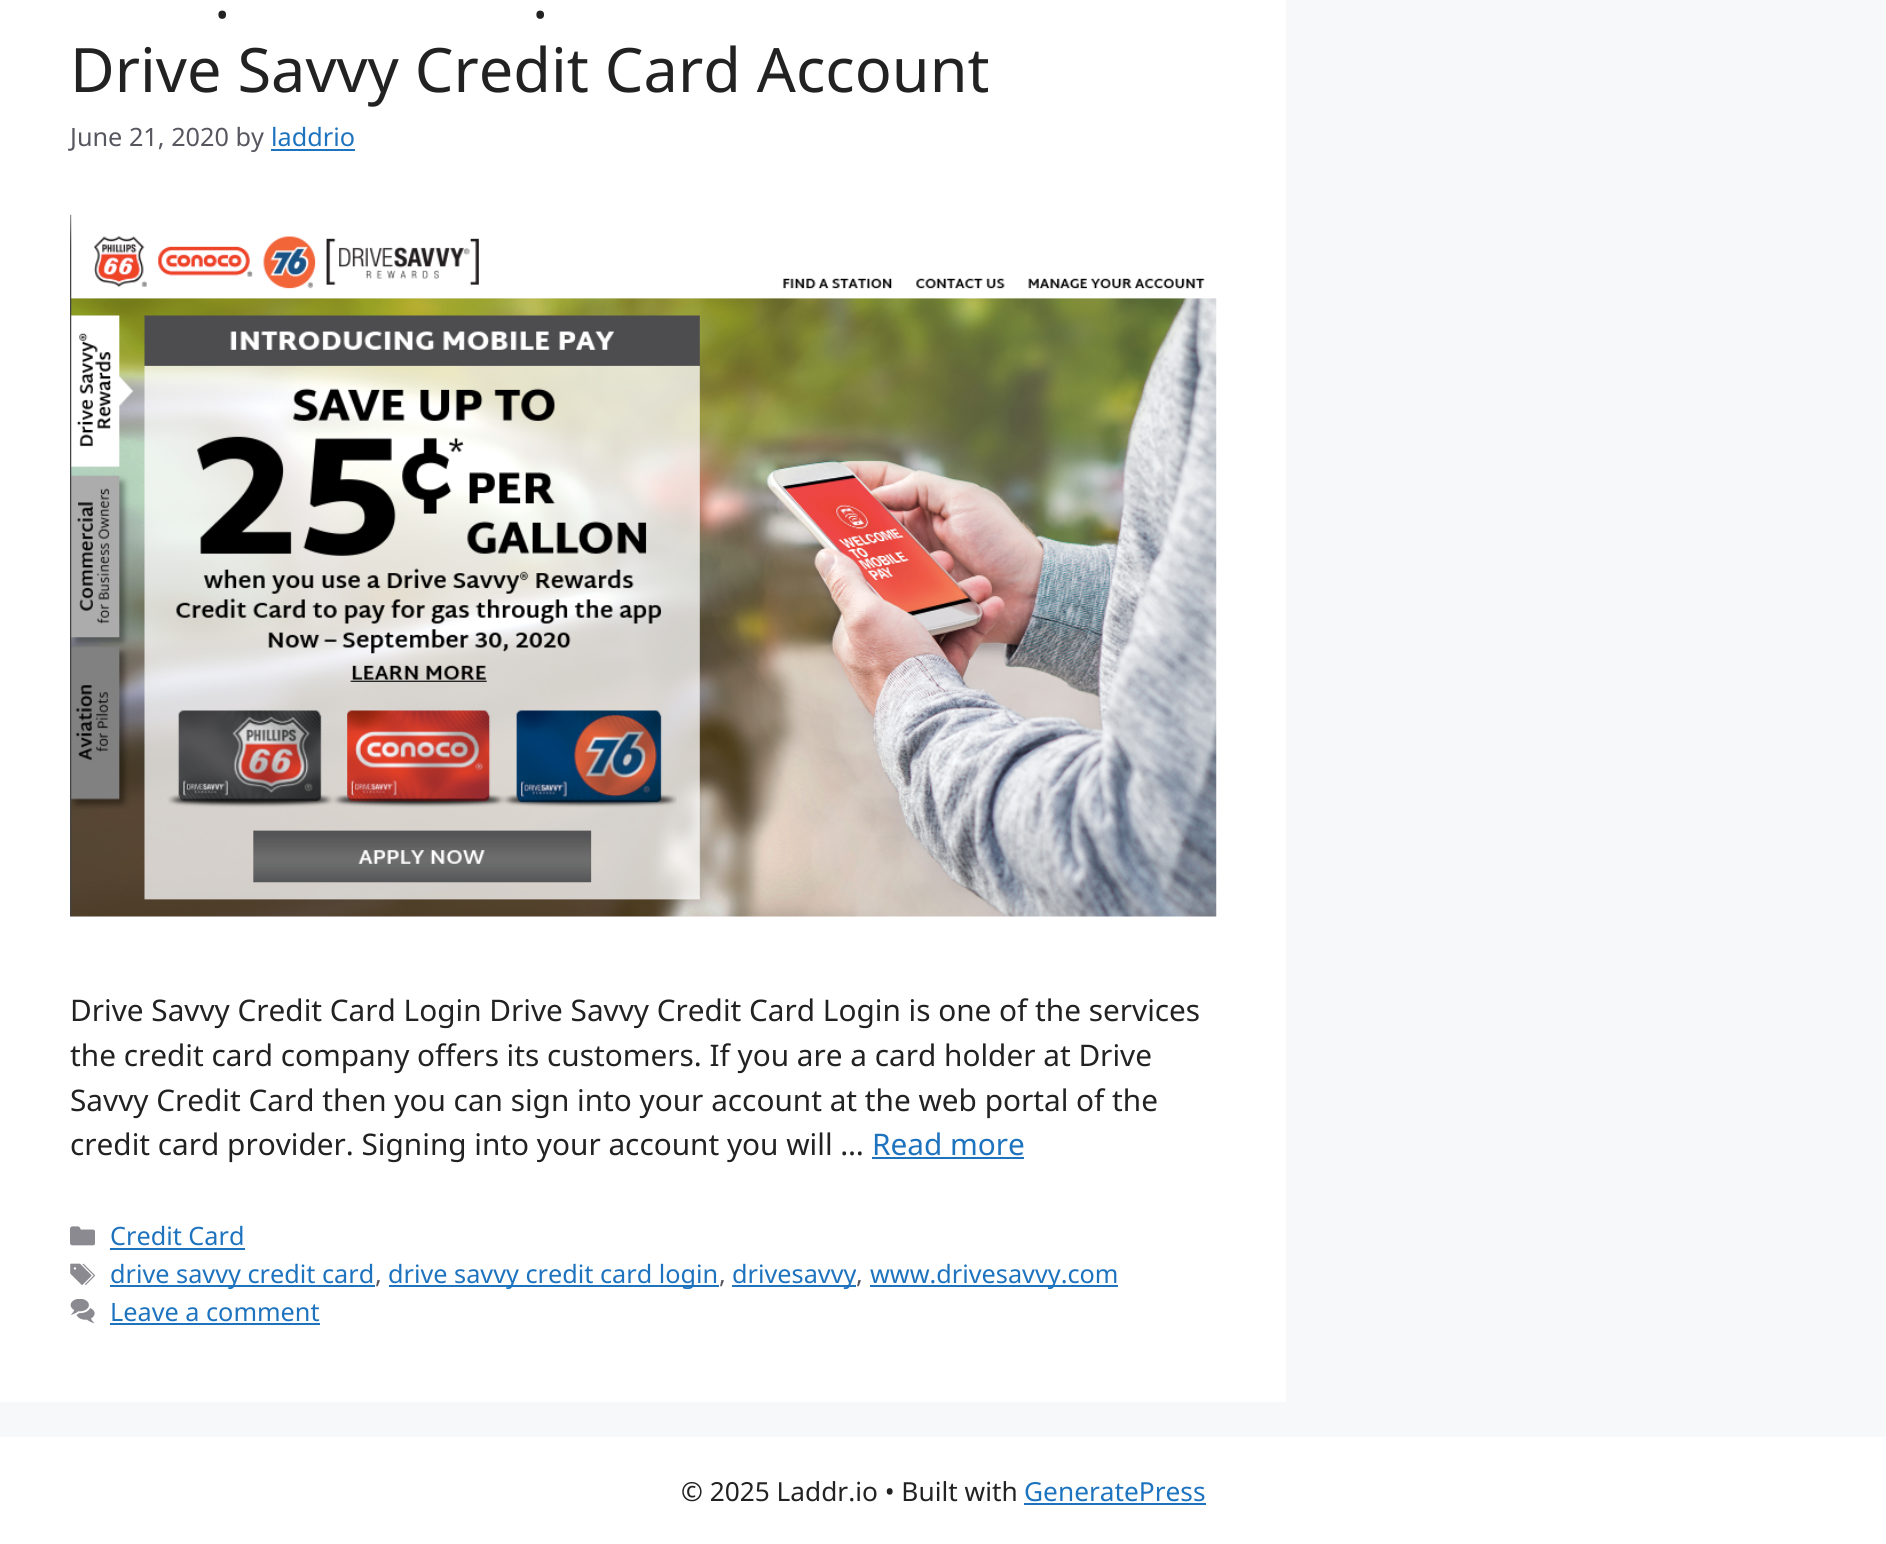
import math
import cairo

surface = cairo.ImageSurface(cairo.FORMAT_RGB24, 1886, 1544)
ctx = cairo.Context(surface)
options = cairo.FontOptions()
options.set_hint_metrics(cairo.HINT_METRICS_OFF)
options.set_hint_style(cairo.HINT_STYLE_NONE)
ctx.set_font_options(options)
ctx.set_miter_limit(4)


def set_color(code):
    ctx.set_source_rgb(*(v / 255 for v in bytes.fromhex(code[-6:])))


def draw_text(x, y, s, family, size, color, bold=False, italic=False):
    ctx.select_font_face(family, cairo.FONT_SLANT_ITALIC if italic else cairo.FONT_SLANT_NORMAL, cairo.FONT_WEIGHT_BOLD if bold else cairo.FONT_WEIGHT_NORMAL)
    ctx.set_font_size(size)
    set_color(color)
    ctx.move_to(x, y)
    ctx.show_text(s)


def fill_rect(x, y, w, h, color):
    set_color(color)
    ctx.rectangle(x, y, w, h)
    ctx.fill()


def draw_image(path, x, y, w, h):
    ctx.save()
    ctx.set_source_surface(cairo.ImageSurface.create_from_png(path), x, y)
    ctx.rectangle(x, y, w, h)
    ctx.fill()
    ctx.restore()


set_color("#f7f8f9")
ctx.paint()
fill_rect(0, 0, 1286, 1402, "#ffffff")
draw_text(214, 18, ".", "Noto Sans", 61.25, "#222222")
draw_text(532, 18, ".", "Noto Sans", 61.25, "#222222")
draw_text(70, 92, "Drive Savvy Credit Card Account", "Noto Sans", 61.25, "#222222")
draw_text(70, 146, "June 21, 2020 by", "Noto Sans", 25.25, "#575760")
draw_text(271, 146, "laddrio", "Noto Sans", 25.25, "#1e73be")
fill_rect(271, 149, 84, 2, "#1e73be")
draw_image("assets/img1.png", 70, 214, 1147, 703)
draw_text(70, 1021, "Drive Savvy Credit Card Login Drive Savvy Credit Card Login is one of the services", "Noto Sans", 29.75, "#222222")
draw_text(70, 1066, "the credit card company offers its customers. If you are a card holder at Drive", "Noto Sans", 29.75, "#222222")
draw_text(70, 1111, "Savvy Credit Card then you can sign into your account at the web portal of the", "Noto Sans", 29.75, "#222222")
draw_text(70, 1155, "credit card provider. Signing into your account you will …", "Noto Sans", 29.75, "#222222")
draw_text(872, 1155, "Read more", "Noto Sans", 29.75, "#1e73be")
fill_rect(872, 1157, 152, 2, "#1e73be")
draw_image("assets/img2.png", 70, 1226, 25, 20)
draw_text(110, 1245, "Credit Card", "Noto Sans", 25.25, "#1e73be")
fill_rect(110, 1248, 135, 2, "#1e73be")
draw_image("assets/img3.png", 70, 1263, 25, 22)
fill_rect(110, 1285, 265, 2, "#1e73be")
draw_text(110, 1283, "drive savvy credit card", "Noto Sans", 25.25, "#1e73be")
draw_text(375, 1283, ",", "Noto Sans", 25.25, "#575760")
fill_rect(389, 1285, 330, 2, "#1e73be")
draw_text(388, 1283, "drive savvy credit card login", "Noto Sans", 25.25, "#1e73be")
draw_text(719, 1283, ",", "Noto Sans", 25.25, "#575760")
fill_rect(732, 1285, 124, 2, "#1e73be")
draw_text(732, 1283, "drivesavvy", "Noto Sans", 25.25, "#1e73be")
draw_text(856, 1283, ",", "Noto Sans", 25.25, "#575760")
fill_rect(870, 1285, 248, 2, "#1e73be")
draw_text(870, 1283, "www.drivesavvy.com", "Noto Sans", 25.25, "#1e73be")
draw_image("assets/img4.png", 70, 1299, 25, 25)
draw_text(110, 1321, "Leave a comment", "Noto Sans", 25.25, "#1e73be")
fill_rect(110, 1323, 210, 2, "#1e73be")
fill_rect(0, 1437, 1886, 107, "#ffffff")
draw_text(681, 1501, "© 2025 Laddr.io • Built with", "Noto Sans", 26.25, "#222222")
draw_text(1024, 1501, "GeneratePress", "Noto Sans", 26.25, "#1e73be")
fill_rect(1024, 1503, 182, 2, "#1e73be")
surface.write_to_png("output.png")
